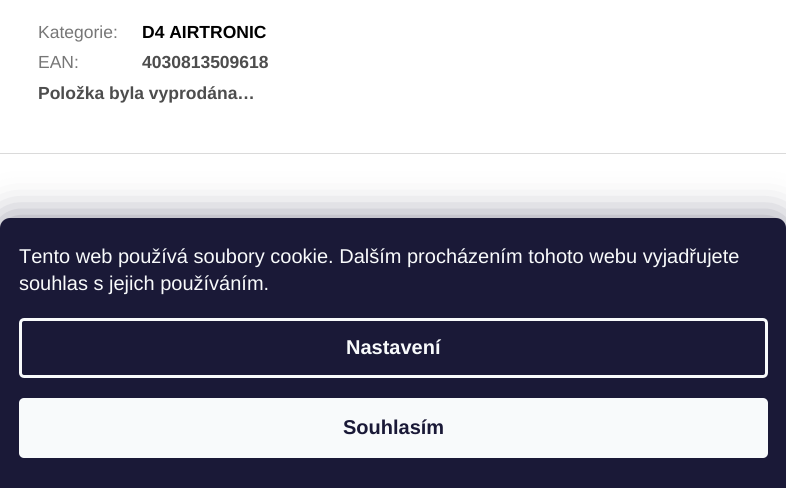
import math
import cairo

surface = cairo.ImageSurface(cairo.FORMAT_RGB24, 786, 488)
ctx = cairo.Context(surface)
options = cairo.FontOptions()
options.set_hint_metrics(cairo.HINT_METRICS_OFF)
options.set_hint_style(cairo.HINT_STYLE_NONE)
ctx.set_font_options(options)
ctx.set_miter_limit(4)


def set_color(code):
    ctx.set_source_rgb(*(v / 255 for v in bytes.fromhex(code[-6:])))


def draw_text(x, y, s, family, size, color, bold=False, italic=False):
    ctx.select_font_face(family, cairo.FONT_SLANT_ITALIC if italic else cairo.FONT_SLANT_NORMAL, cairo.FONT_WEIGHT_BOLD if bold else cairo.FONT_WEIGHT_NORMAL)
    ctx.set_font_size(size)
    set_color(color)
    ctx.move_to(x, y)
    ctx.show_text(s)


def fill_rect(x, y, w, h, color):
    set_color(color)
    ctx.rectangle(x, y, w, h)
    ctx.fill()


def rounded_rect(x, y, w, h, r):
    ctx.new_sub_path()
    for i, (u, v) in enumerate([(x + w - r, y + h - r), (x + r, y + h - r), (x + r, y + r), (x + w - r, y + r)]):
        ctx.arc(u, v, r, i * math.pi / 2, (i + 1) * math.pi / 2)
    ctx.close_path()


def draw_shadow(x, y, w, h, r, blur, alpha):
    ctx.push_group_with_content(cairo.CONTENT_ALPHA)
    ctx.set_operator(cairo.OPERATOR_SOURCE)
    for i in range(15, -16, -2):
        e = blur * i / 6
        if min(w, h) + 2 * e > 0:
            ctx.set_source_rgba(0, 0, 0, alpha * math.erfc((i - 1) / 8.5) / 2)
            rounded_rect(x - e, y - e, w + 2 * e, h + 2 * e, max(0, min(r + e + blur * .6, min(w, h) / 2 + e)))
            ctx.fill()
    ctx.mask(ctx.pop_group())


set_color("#ffffff")
ctx.paint()
draw_text(38, 38, "Kategorie:", "Liberation Sans", 17.5, "#767676")
draw_text(142, 38, "D4 AIRTRONIC", "Liberation Sans", 17.5, "#000000", bold=True)
draw_text(38, 68, "EAN:", "Liberation Sans", 17.5, "#767676")
draw_text(142, 68, "4030813509618", "Liberation Sans", 17.5, "#4d4d4d", bold=True)
draw_text(38, 99, "Položka byla vyprodána…", "Liberation Sans", 17.5, "#4d4d4d", bold=True)
fill_rect(0, 153, 786, 1, "#dadada")
set_color("#1b1939")
draw_shadow(0, 218, 786, 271, 10, 19, 0.5)
set_color("#1a1937")
ctx.new_path()
ctx.move_to(10, 218)
ctx.line_to(776, 218)
ctx.curve_to(781.5, 218, 786, 222.5, 786, 228)
ctx.line_to(786, 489)
ctx.line_to(0, 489)
ctx.line_to(0, 228)
ctx.curve_to(0, 222.5, 4.5, 218, 10, 218)
ctx.close_path()
ctx.fill()
draw_text(19, 263, "Tento web používá soubory cookie. Dalším procházením tohoto webu vyjadřujete", "Liberation Sans", 20, "#f8fafb")
draw_text(19, 290, "souhlas s jejich používáním.", "Liberation Sans", 20, "#f8fafb")
rounded_rect(20.5, 319.5, 746, 57, 3.5)
ctx.set_line_width(3)
ctx.stroke()
draw_text(346, 354, "Nastavení", "Liberation Sans", 20, "#f8fafb", bold=True)
rounded_rect(19, 398, 749, 60, 5)
ctx.fill()
draw_text(343, 434, "Souhlasím", "Liberation Sans", 20, "#1a1937", bold=True)
surface.write_to_png("output.png")
